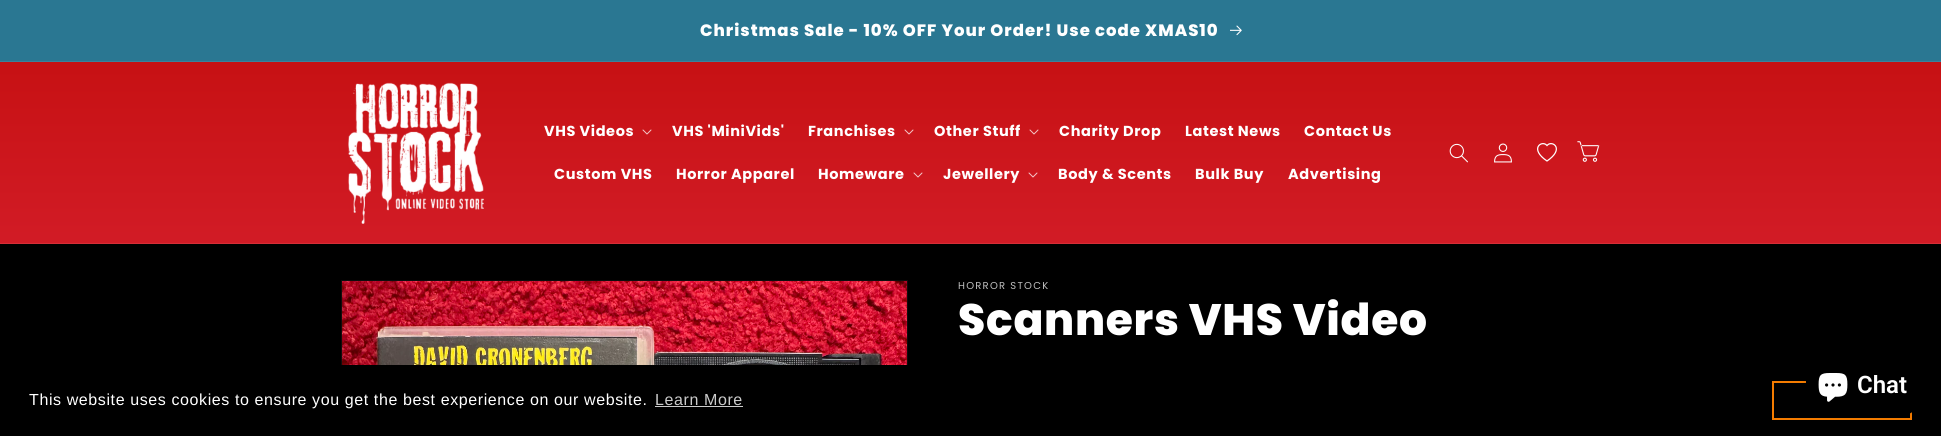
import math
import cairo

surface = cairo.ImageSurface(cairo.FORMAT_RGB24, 1941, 436)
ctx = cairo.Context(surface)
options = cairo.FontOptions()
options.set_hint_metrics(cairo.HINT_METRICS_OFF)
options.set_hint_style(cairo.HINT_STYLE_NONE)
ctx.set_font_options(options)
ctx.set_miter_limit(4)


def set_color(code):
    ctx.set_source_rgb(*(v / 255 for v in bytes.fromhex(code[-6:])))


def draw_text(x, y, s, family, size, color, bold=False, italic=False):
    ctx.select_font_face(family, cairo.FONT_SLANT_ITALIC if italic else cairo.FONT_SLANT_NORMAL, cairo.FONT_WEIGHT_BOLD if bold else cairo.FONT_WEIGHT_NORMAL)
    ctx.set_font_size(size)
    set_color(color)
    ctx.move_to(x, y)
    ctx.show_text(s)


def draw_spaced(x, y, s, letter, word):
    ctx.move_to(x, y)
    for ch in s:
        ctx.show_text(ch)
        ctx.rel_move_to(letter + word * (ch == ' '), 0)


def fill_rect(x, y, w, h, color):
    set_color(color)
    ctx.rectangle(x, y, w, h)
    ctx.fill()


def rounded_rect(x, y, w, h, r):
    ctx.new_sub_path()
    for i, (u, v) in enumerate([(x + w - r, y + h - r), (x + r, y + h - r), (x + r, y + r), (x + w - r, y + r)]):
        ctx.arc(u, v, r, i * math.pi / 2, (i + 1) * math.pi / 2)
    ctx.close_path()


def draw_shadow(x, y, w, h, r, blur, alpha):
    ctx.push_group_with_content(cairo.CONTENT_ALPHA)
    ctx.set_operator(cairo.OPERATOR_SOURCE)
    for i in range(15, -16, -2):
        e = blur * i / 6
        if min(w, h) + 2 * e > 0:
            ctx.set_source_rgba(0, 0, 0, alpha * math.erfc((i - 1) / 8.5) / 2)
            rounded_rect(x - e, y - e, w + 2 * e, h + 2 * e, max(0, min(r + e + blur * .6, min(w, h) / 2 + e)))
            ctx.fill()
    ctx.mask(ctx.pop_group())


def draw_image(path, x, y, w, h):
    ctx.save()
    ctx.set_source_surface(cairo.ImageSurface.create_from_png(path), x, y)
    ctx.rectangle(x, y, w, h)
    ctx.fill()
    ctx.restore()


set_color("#000000")
ctx.paint()
fill_rect(0, 0, 1941, 61, "#2a7792")
fill_rect(0, 61, 1941, 1, "#3b829b")
ctx.select_font_face("Poppins ExtraBold")
ctx.set_font_size(16.5)
set_color("#ffffff")
draw_spaced(700, 36, "Christmas Sale - 10% OFF Your Order! Use code XMAS10", 1, 0)
draw_image("assets/img1.png", 1230, 25, 12, 11)
gradient = cairo.LinearGradient(971, 0, 971, 436)
gradient.add_color_stop_rgba(0, 0.765, 0.051, 0.051, 1)
gradient.add_color_stop_rgba(1, 0.867, 0.153, 0.224, 1)
ctx.set_source(gradient)
ctx.rectangle(0, 62, 1941, 181)
ctx.fill()
fill_rect(0, 243, 1941, 1, "#d62e37")
draw_image("assets/img2.png", 348, 82, 136, 142)
ctx.select_font_face("Poppins", cairo.FONT_SLANT_NORMAL, cairo.FONT_WEIGHT_BOLD)
ctx.set_font_size(14.5)
set_color("#ffffff")
draw_spaced(544, 136, "VHS Videos", 0.6, 0)
draw_image("assets/img3.png", 642, 129, 10, 6)
draw_spaced(672, 136, "VHS 'MiniVids'", 0.6, 0)
draw_spaced(808, 136, "Franchises", 0.6, 0)
draw_image("assets/img3.png", 904, 129, 10, 6)
draw_spaced(934, 136, "Other Stuff", 0.6, 0)
draw_image("assets/img3.png", 1029, 129, 10, 6)
draw_spaced(1059, 136, "Charity Drop", 0.6, 0)
draw_spaced(1185, 136, "Latest News", 0.6, 0)
draw_spaced(1304, 136, "Contact Us", 0.6, 0)
draw_spaced(554, 179, "Custom VHS", 0.6, 0)
draw_spaced(676, 179, "Horror Apparel", 0.6, 0)
draw_spaced(818, 179, "Homeware", 0.6, 0)
draw_image("assets/img4.png", 913, 172, 10, 6)
draw_spaced(943, 179, "Jewellery", 0.6, 0)
draw_image("assets/img4.png", 1028, 172, 10, 6)
draw_spaced(1058, 179, "Body & Scents", 0.6, 0)
draw_spaced(1195, 179, "Bulk Buy", 0.6, 0)
draw_spaced(1288, 179, "Advertising", 0.6, 0)
draw_image("assets/img5.png", 1449, 143, 19, 20)
draw_image("assets/img6.png", 1494, 143, 18, 20)
draw_image("assets/img7.png", 1537, 143, 20, 19)
draw_image("assets/img8.png", 1577, 141, 23, 21)
ctx.rectangle(341.5, 280.5, 566, 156)
set_color("#0d0d0d")
ctx.set_line_width(1)
ctx.stroke()
draw_image("assets/img9.png", 341, 281, 566, 84)
ctx.select_font_face("Poppins")
ctx.set_font_size(10)
set_color("#bfbfbf")
draw_spaced(958, 289, "HORROR STOCK", 1.25, 0)
ctx.select_font_face("Poppins ExtraBold")
ctx.set_font_size(44)
set_color("#ffffff")
draw_spaced(958, 335, "Scanners VHS Video", 0.7, 0)
ctx.rectangle(1773, 382, 138, 37)
set_color("#f57c00")
ctx.set_line_width(2)
ctx.stroke()
set_color("#000000")
draw_shadow(1806, 355, 113, 60, 16, 2.5, 0.15)
set_color("#000000")
rounded_rect(1806, 355, 113, 60, 16)
ctx.fill()
draw_image("assets/img10.png", 1818, 373, 30, 29)
draw_text(1857, 393, "Chat", "Roboto SemiBold", 24, "#ffffff")
fill_rect(341, 365, 567, 71, "#000000")
ctx.select_font_face("Liberation Sans")
ctx.set_font_size(16)
set_color("#ffffff")
draw_spaced(29, 405, "This website uses cookies to ensure you get the best experience on our website.", 0.6, 0)
set_color("#cccccc")
draw_spaced(655, 405, "Learn More", 0.6, 0)
fill_rect(655, 406, 88, 1, "#cccccc")
surface.write_to_png("output.png")
